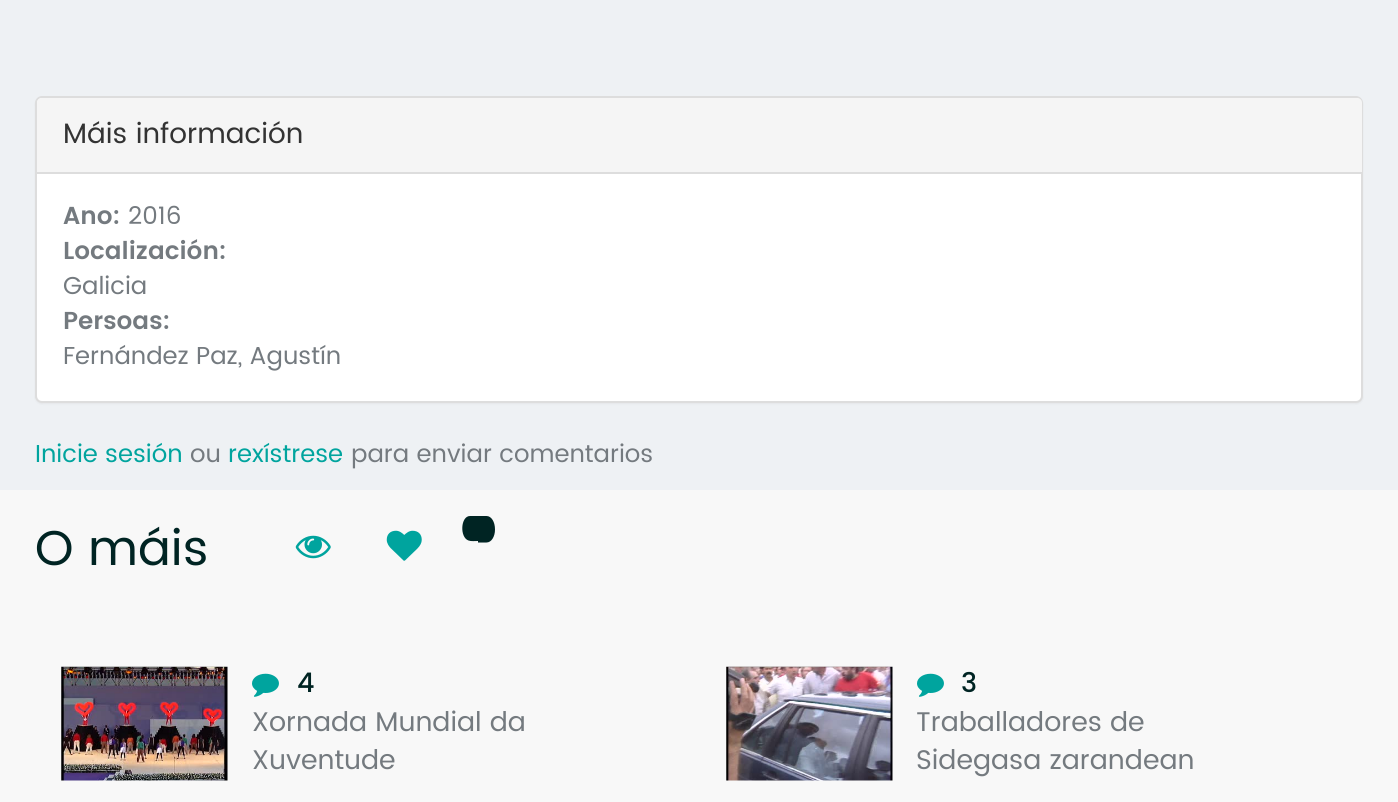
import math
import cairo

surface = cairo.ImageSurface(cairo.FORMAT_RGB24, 1398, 802)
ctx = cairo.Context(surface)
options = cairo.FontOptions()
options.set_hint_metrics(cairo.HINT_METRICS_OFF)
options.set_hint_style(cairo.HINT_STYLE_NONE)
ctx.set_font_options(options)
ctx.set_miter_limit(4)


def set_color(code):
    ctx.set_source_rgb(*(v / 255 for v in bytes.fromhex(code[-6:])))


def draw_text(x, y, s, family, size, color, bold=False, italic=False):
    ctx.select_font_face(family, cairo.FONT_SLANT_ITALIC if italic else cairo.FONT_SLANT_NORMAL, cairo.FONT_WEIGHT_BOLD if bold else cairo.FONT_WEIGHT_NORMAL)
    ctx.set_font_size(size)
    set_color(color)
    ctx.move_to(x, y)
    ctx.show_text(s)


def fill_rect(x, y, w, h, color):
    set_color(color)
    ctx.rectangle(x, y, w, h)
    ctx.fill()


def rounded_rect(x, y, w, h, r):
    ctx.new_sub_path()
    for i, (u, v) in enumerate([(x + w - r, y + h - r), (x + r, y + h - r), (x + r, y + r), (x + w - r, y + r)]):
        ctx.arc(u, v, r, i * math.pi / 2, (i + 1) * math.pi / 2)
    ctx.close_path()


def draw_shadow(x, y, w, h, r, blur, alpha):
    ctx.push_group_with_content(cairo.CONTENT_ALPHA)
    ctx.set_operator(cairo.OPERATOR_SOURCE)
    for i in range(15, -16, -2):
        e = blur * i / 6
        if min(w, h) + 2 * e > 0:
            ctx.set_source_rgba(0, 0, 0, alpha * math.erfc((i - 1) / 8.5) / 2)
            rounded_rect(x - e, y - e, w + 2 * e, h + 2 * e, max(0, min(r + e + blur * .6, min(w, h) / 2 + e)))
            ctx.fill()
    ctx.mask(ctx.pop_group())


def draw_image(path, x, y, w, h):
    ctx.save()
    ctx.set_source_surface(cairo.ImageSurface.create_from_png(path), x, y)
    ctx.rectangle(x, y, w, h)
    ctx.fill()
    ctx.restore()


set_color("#eef1f4")
ctx.paint()
set_color("#000000")
draw_shadow(35, 98, 1328, 306, 7, 1, 0.05)
set_color("#ffffff")
rounded_rect(36, 97, 1326, 305, 6)
ctx.fill_preserve()
set_color("#dddddd")
ctx.stroke()
set_color("#f5f5f5")
ctx.new_path()
ctx.move_to(42, 98)
ctx.line_to(1357, 98)
ctx.curve_to(1360, 98, 1362, 100, 1362, 103)
ctx.line_to(1362, 173)
ctx.line_to(37, 173)
ctx.line_to(37, 103)
ctx.curve_to(37, 100, 39, 98, 42, 98)
ctx.close_path()
ctx.fill()
fill_rect(37, 172, 1325, 2, "#dddddd")
draw_text(63, 143, "Máis información", "Poppins", 28, "#333333")
draw_text(63, 224, "Ano:", "Poppins SemiBold", 24.5, "#747a7f")
draw_text(128, 224, "2016", "Poppins", 24.5, "#747a7f")
draw_text(63, 259, "Localización:", "Poppins SemiBold", 24.5, "#747a7f")
draw_text(63, 294, "Galicia", "Poppins", 24.5, "#747a7f")
draw_text(63, 329, "Persoas:", "Poppins SemiBold", 24.5, "#747a7f")
draw_text(63, 364, "Fernández Paz, Agustín", "Poppins", 24.5, "#747a7f")
draw_text(35, 462, "Inicie sesión", "Poppins", 24.5, "#00a49e")
draw_text(190, 462, "ou", "Poppins", 24.5, "#747a7f")
draw_text(228, 462, "rexístrese", "Poppins", 24.5, "#00a49e")
draw_text(351, 462, "para enviar comentarios", "Poppins", 24.5, "#747a7f")
fill_rect(0, 490, 1398, 312, "#f8f8f8")
draw_text(35, 565, "O máis", "Poppins", 49, "#002423")
draw_image("assets/img1.png", 295, 535, 36, 24)
draw_image("assets/img2.png", 386, 530, 36, 31)
ctx.new_path()
ctx.move_to(470, 516)
ctx.line_to(478, 516)
ctx.line_to(478, 541)
ctx.curve_to(475, 541, 471, 541.5, 468.5, 540.5)
ctx.curve_to(459.5, 537.5, 460.5, 516, 470, 516)
ctx.close_path()
ctx.move_to(478, 516)
ctx.line_to(486.5, 516)
ctx.curve_to(491.5, 516, 495, 522, 495, 529.5)
ctx.curve_to(495, 536.5, 491.5, 542.5, 486.5, 542.5)
ctx.line_to(478, 542.5)
ctx.close_path()
ctx.fill()
draw_image("assets/img3.png", 61, 666, 167, 115)
draw_image("assets/img4.png", 252, 673, 27, 24)
draw_text(297, 692, "4", "Poppins Medium", 27, "#002423")
draw_text(252, 731, "Xornada Mundial da", "Poppins", 27, "#747a7f")
draw_text(252, 769, "Xuventude", "Poppins", 27, "#747a7f")
draw_image("assets/img5.png", 726, 666, 167, 115)
draw_image("assets/img4.png", 917, 673, 27, 24)
draw_text(961, 692, "3", "Poppins Medium", 27, "#002423")
draw_text(916, 731, "Traballadores de", "Poppins", 27, "#747a7f")
draw_text(916, 769, "Sidegasa zarandean", "Poppins", 27, "#747a7f")
surface.write_to_png("output.png")
